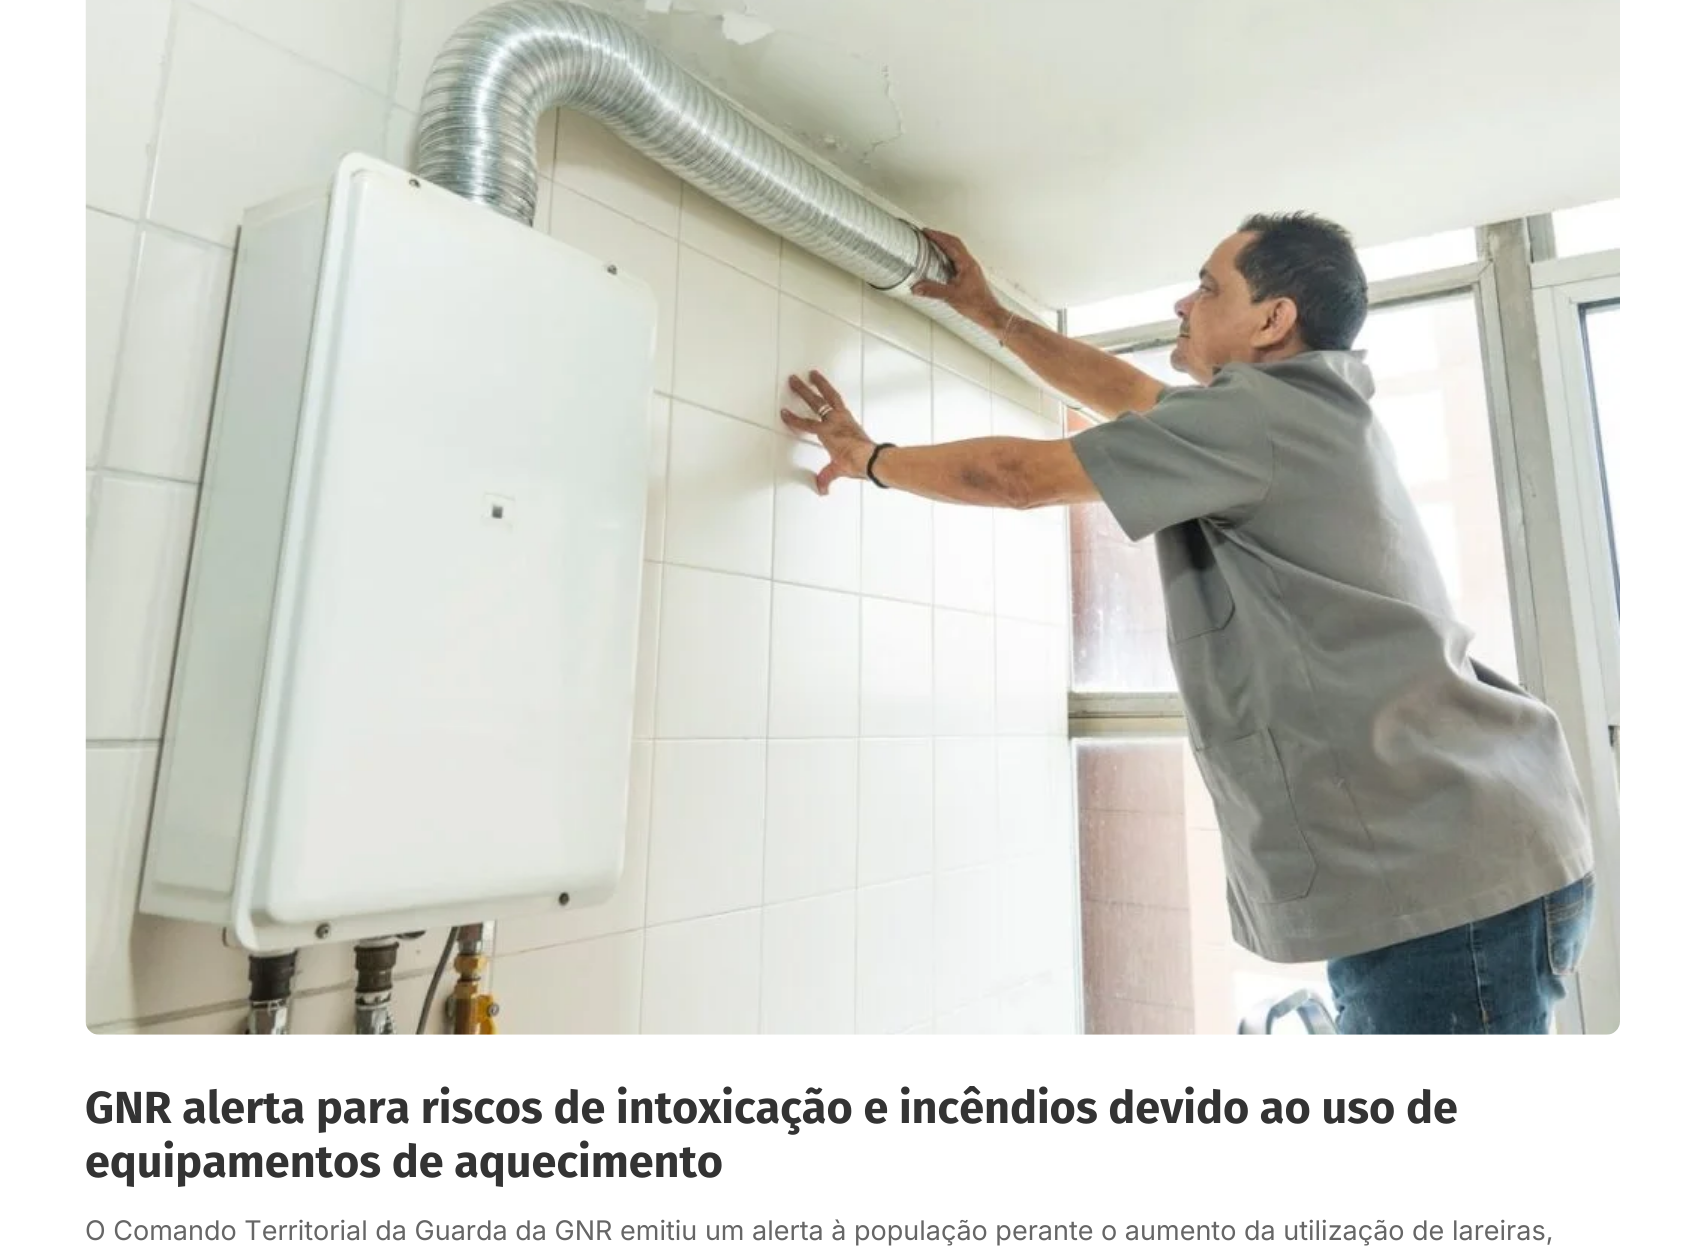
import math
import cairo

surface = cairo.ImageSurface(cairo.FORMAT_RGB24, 1705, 1258)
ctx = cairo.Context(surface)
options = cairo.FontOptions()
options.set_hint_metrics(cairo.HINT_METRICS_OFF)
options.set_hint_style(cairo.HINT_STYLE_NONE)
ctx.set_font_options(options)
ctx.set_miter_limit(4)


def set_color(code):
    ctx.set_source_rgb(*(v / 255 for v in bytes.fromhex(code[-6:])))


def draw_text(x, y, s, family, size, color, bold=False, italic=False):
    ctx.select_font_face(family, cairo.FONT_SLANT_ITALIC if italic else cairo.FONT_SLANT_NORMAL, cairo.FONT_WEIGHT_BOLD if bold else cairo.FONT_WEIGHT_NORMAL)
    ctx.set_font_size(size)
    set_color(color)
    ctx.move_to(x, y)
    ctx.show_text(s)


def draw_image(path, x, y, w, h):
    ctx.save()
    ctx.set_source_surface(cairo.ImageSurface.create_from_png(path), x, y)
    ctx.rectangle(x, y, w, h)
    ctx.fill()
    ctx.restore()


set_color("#ffffff")
ctx.paint()
draw_image("assets/img1.png", 85, 0, 1535, 1035)
draw_text(85, 1123, "GNR alerta para riscos de intoxicação e incêndios devido ao uso de", "Fira Sans", 45, "#333333", bold=True)
draw_text(85, 1177, "equipamentos de aquecimento", "Fira Sans", 45, "#333333", bold=True)
draw_text(85, 1240, "O Comando Territorial da Guarda da GNR emitiu um alerta à população perante o aumento da utilização de lareiras,", "Inter", 27, "#666666")
surface.write_to_png("output.png")
